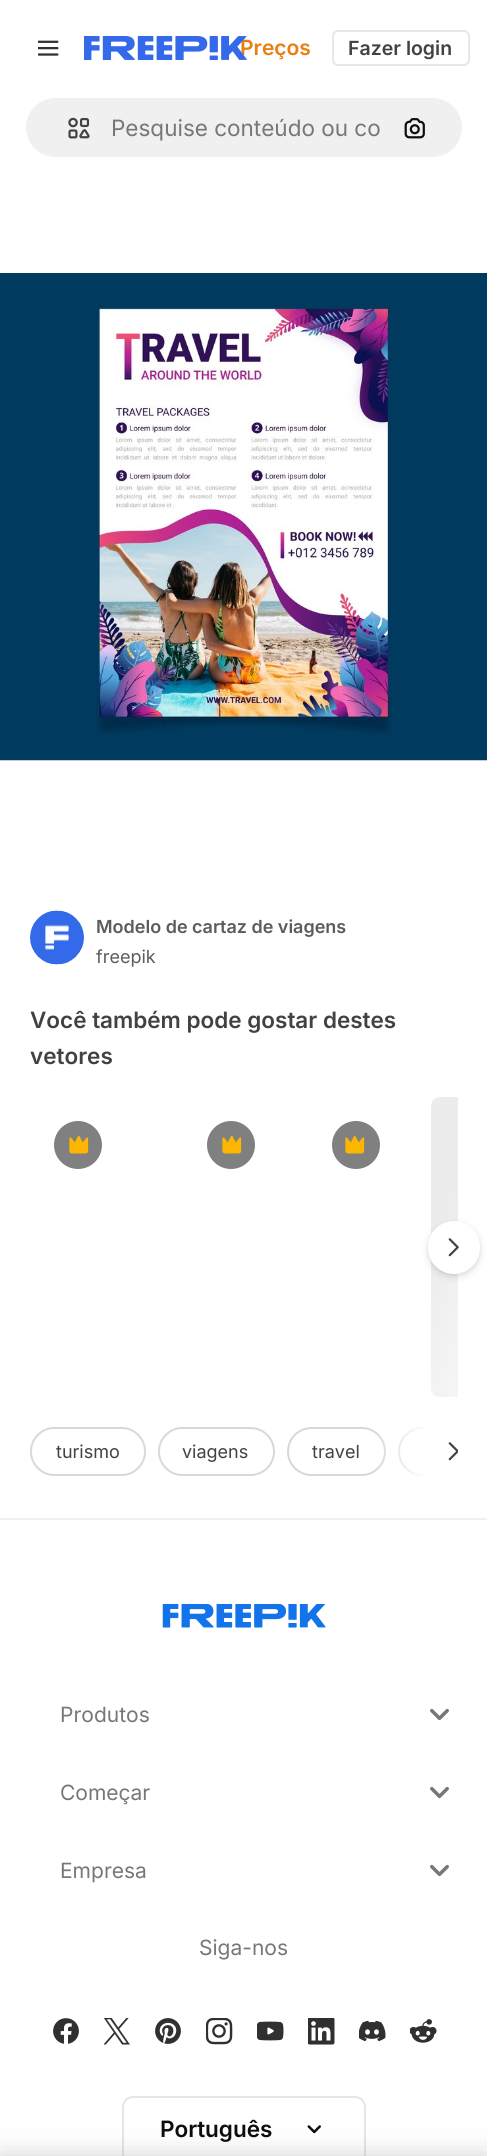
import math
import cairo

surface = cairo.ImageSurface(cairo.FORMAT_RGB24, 487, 2156)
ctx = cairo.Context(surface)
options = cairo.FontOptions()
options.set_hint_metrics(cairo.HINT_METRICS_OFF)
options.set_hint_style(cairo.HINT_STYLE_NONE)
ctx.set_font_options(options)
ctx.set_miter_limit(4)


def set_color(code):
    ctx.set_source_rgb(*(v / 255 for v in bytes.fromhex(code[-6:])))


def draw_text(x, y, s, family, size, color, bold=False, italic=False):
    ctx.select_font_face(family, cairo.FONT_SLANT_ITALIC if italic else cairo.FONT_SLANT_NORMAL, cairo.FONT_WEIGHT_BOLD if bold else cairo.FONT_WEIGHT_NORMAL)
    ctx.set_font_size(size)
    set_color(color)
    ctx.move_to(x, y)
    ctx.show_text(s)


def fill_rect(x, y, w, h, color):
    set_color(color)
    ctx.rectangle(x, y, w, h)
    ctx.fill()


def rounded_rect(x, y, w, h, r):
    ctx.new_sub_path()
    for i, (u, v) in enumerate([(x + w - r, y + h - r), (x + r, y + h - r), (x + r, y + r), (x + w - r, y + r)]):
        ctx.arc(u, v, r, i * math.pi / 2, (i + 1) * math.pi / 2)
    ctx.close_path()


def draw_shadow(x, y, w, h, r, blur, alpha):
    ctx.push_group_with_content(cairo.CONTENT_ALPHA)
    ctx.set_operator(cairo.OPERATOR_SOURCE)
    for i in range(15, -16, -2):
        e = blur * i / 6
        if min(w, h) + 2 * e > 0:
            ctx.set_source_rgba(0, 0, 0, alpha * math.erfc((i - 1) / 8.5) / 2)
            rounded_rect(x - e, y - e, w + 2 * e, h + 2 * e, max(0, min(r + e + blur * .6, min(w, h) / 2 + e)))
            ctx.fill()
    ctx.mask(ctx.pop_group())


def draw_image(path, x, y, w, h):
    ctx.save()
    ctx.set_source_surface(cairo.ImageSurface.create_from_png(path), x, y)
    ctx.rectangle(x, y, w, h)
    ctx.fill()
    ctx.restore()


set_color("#ffffff")
ctx.paint()
draw_image("assets/img1.png", 38, 40, 21, 16)
draw_text(240, 55, "Preços", "Inter SemiBold", 21, "#ea7e11")
draw_image("assets/img2.png", 84, 36, 163, 24)
rounded_rect(333, 31, 136, 34, 5)
set_color("#e7e7e7")
ctx.stroke()
draw_text(348, 55, "Fazer login", "Inter SemiBold", 19.5, "#424242")
set_color("#f0f0f0")
rounded_rect(25, 97, 438, 61, 30.5)
ctx.fill_preserve()
set_color("#ffffff")
ctx.stroke()
draw_image("assets/img3.png", 68, 117, 22, 22)
draw_text(111, 136, "Pesquise conteúdo ou co", "Inter", 22.5, "#777777")
draw_image("assets/img4.png", 404, 118, 21, 21)
draw_image("assets/img5.png", 0, 273, 487, 488)
draw_image("assets/img6.png", 30, 910, 54, 55)
draw_text(96, 933, "Modelo de cartaz de viagens", "Inter SemiBold", 18, "#5c5c5c")
draw_text(96, 963, "freepik", "Inter", 18, "#5c5c5c")
draw_text(30, 1028, "Você também pode gostar destes", "Inter SemiBold", 22.5, "#424242")
draw_text(30, 1064, "vetores", "Inter SemiBold", 22.5, "#424242")
set_color("#808080")
ctx.new_path()
ctx.arc(78, 1145, 24, 0, 2 * math.pi)
ctx.fill()
draw_image("assets/img7.png", 69, 1136, 20, 18)
ctx.arc(231, 1145, 24, 0, 2 * math.pi)
ctx.fill()
draw_image("assets/img7.png", 222, 1136, 20, 18)
ctx.arc(356, 1145, 24, 0, 2 * math.pi)
ctx.fill()
draw_image("assets/img7.png", 345, 1136, 20, 18)
gradient = cairo.LinearGradient(417, 1133, 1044, 1360)
gradient.add_color_stop_rgba(0.08, 0.925, 0.925, 0.925, 1)
gradient.add_color_stop_rgba(0.18, 0.961, 0.961, 0.961, 1)
gradient.add_color_stop_rgba(0.33, 0.925, 0.925, 0.925, 1)
ctx.set_source(gradient)
ctx.new_path()
ctx.move_to(440, 1097)
ctx.line_to(458, 1097)
ctx.line_to(458, 1397)
ctx.line_to(440, 1397)
ctx.curve_to(435, 1397, 431, 1393, 431, 1388)
ctx.line_to(431, 1106)
ctx.curve_to(431, 1101, 435, 1097, 440, 1097)
ctx.close_path()
ctx.fill()
set_color("#374957")
draw_shadow(428, 1224, 52, 53, 26, 4, 0.15)
draw_shadow(428, 1223, 52, 52, 26, 1.5, 0.1)
set_color("#ffffff")
rounded_rect(428, 1221, 52, 53, 26)
ctx.fill()
draw_image("assets/img8.png", 448, 1238, 11, 19)
rounded_rect(31, 1428, 114, 47, 23.5)
set_color("#d8d8d8")
ctx.stroke()
draw_text(56, 1458, "turismo", "Inter", 18, "#424242")
rounded_rect(159, 1428, 115, 47, 23.5)
set_color("#d8d8d8")
ctx.stroke()
draw_text(182, 1458, "viagens", "Inter", 18, "#424242")
rounded_rect(288, 1428, 97, 47, 23.5)
set_color("#d8d8d8")
ctx.stroke()
draw_text(312, 1458, "travel", "Inter", 18, "#424242")
ctx.save()
ctx.rectangle(30, 1427, 428, 49)
ctx.clip()
rounded_rect(399, 1428, 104, 47, 23.5)
set_color("#d8d8d8")
ctx.stroke()
ctx.restore()
fill_rect(428, 1427, 30, 49, "#ffffff")
gradient = cairo.LinearGradient(428, 1451, 375, 1451)
gradient.add_color_stop_rgba(0, 1, 1, 1, 1)
gradient.add_color_stop_rgba(1, 1, 1, 1, 0)
ctx.set_source(gradient)
ctx.rectangle(378, 1427, 50, 49)
ctx.fill()
draw_image("assets/img9.png", 448, 1442, 10, 19)
fill_rect(0, 1518, 487, 2, "#f0f0f0")
draw_image("assets/img10.png", 162, 1604, 164, 24)
draw_text(60, 1722, "Produtos", "Inter", 21, "#777777")
draw_image("assets/img11.png", 430, 1708, 19, 13)
draw_text(60, 1800, "Começar", "Inter", 21, "#777777")
draw_image("assets/img11.png", 430, 1786, 19, 13)
draw_text(60, 1878, "Empresa", "Inter", 21, "#777777")
draw_image("assets/img11.png", 430, 1864, 19, 13)
draw_text(199, 1955, "Siga-nos", "Inter", 21, "#777777")
draw_image("assets/img12.png", 53, 2018, 26, 26)
draw_image("assets/img13.png", 104, 2018, 26, 27)
draw_image("assets/img14.png", 155, 2018, 26, 26)
draw_image("assets/img15.png", 206, 2018, 27, 27)
draw_image("assets/img16.png", 257, 2021, 27, 20)
draw_image("assets/img17.png", 308, 2018, 27, 27)
draw_image("assets/img18.png", 359, 2020, 27, 22)
draw_image("assets/img19.png", 410, 2019, 27, 24)
rounded_rect(123, 2097, 242, 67, 10)
set_color("#e6e6e6")
ctx.stroke()
draw_text(160, 2137, "Português", "Inter SemiBold", 22.5, "#0d0d0d")
draw_image("assets/img20.png", 307, 2125, 14, 9)
set_color("#000000")
draw_shadow(0, 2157, 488, 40, 0, 13.5, 0.2)
surface.write_to_png("output.png")
